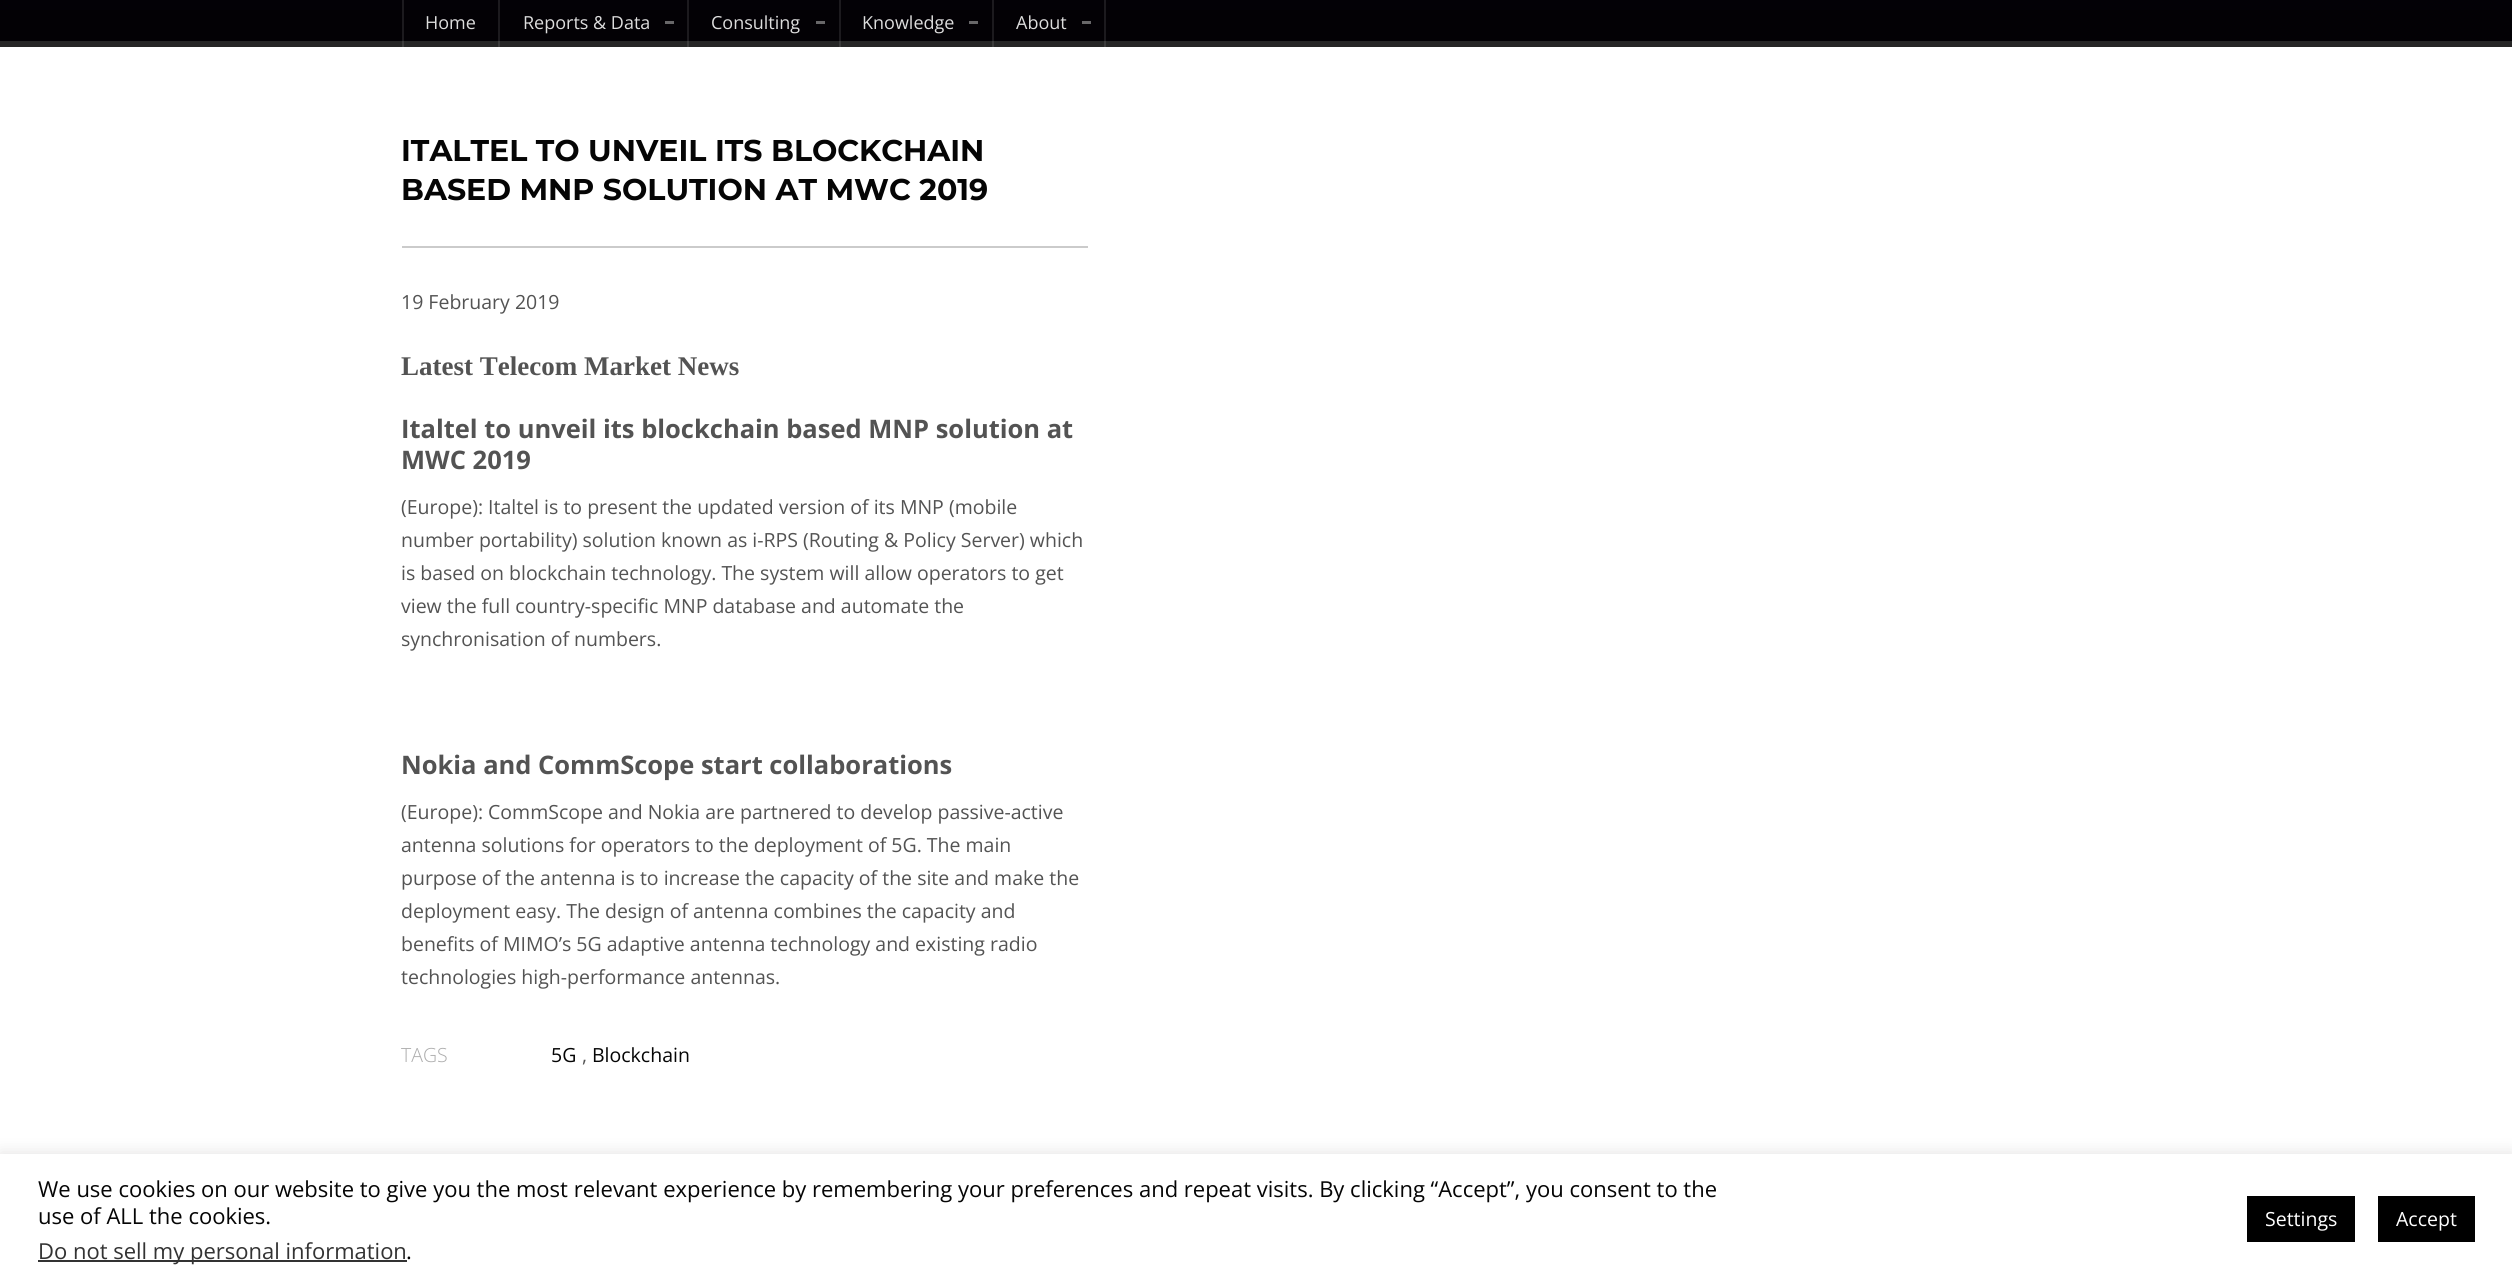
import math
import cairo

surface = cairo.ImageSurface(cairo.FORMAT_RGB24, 2512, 1283)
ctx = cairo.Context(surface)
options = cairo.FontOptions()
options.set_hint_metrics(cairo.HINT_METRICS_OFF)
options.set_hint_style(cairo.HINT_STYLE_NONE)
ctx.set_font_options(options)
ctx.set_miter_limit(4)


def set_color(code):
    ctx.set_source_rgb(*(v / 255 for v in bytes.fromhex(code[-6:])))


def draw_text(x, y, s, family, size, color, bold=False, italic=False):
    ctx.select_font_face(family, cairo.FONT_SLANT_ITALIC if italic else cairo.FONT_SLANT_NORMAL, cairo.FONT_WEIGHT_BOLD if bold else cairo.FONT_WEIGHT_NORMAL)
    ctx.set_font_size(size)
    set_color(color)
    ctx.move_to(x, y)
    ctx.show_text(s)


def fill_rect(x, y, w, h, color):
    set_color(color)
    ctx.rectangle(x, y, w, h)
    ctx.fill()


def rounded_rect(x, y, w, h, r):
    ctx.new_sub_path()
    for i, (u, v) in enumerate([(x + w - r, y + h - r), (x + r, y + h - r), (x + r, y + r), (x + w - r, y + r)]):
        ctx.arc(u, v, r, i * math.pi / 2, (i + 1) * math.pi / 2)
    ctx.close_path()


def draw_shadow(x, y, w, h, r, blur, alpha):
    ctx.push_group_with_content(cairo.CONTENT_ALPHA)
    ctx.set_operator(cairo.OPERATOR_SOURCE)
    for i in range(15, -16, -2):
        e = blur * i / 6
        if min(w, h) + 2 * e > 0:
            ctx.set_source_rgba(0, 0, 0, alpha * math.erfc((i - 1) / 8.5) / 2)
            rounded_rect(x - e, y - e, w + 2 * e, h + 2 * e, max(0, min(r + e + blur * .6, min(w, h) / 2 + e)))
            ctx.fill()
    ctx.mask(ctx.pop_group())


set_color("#ffffff")
ctx.paint()
gradient = cairo.LinearGradient(1256, -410, 1256, 41)
gradient.add_color_stop_rgba(0, 0.024, 0.008, 0.043, 1)
gradient.add_color_stop_rgba(1, 0.012, 0.004, 0.02, 1)
ctx.set_source(gradient)
ctx.rectangle(0, 0, 2512, 41)
ctx.fill()
draw_text(425, 29, "Home", "Open Sans", 18, "#dddddd")
draw_text(523, 29, "Reports & Data", "Open Sans", 18, "#dddddd")
fill_rect(665, 21, 9, 3, "#686769")
draw_text(711, 29, "Consulting", "Open Sans", 18, "#dddddd")
fill_rect(816, 21, 9, 3, "#686769")
draw_text(862, 29, "Knowledge", "Open Sans", 18, "#dddddd")
fill_rect(969, 21, 9, 3, "#686769")
draw_text(1016, 29, "About", "Open Sans", 18, "#dddddd")
fill_rect(1082, 21, 9, 3, "#686769")
fill_rect(0, 41, 2512, 6, "#262626")
fill_rect(992, 41, 2, 6, "#3c3c3c")
fill_rect(1104, 41, 2, 6, "#3c3c3c")
fill_rect(402, 41, 2, 6, "#3c3c3c")
fill_rect(839, 41, 2, 6, "#3c3c3c")
fill_rect(687, 41, 2, 6, "#3c3c3c")
fill_rect(498, 41, 2, 6, "#3c3c3c")
gradient = cairo.LinearGradient(1256, -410, 1256, 41)
gradient.add_color_stop_rgba(0, 0.122, 0.106, 0.137, 1)
gradient.add_color_stop_rgba(1, 0.11, 0.102, 0.118, 1)
ctx.set_source(gradient)
ctx.rectangle(992, 0, 2, 41)
ctx.fill()
ctx.rectangle(1104, 0, 2, 41)
ctx.fill()
ctx.rectangle(402, 0, 2, 41)
ctx.fill()
ctx.rectangle(839, 0, 2, 41)
ctx.fill()
ctx.rectangle(687, 0, 2, 41)
ctx.fill()
ctx.rectangle(498, 0, 2, 41)
ctx.fill()
fill_rect(402, 246, 686, 2, "#cbcbcb")
draw_text(401, 161, "ITALTEL TO UNVEIL ITS BLOCKCHAIN", "Montserrat", 30, "#050505", bold=True)
draw_text(401, 200, "BASED MNP SOLUTION AT MWC 2019", "Montserrat", 30, "#050505", bold=True)
draw_text(401, 309, "19 February 2019", "Open Sans", 19.5, "#535353")
draw_text(401, 375, "Latest Telecom Market News", "Liberation Serif", 27, "#535353", bold=True)
draw_text(401, 438, "Italtel to unveil its blockchain based MNP solution at", "Open Sans", 25.5, "#535353", bold=True)
draw_text(401, 469, "MWC 2019", "Open Sans", 25.5, "#535353", bold=True)
draw_text(401, 514, "(Europe): Italtel is to present the updated version of its MNP (mobile", "Open Sans", 19.5, "#535353")
draw_text(401, 547, "number portability) solution known as i-RPS (Routing & Policy Server) which", "Open Sans", 19.5, "#535353")
draw_text(401, 580, "is based on blockchain technology. The system will allow operators to get", "Open Sans", 19.5, "#535353")
draw_text(401, 613, "view the full country-specific MNP database and automate the", "Open Sans", 19.5, "#535353")
draw_text(401, 646, "synchronisation of numbers.", "Open Sans", 19.5, "#535353")
draw_text(401, 774, "Nokia and CommScope start collaborations", "Open Sans", 25.5, "#535353", bold=True)
draw_text(401, 819, "(Europe): CommScope and Nokia are partnered to develop passive-active", "Open Sans", 19.5, "#535353")
draw_text(401, 852, "antenna solutions for operators to the deployment of 5G. The main", "Open Sans", 19.5, "#535353")
draw_text(401, 885, "purpose of the antenna is to increase the capacity of the site and make the", "Open Sans", 19.5, "#535353")
draw_text(401, 918, "deployment easy. The design of antenna combines the capacity and", "Open Sans", 19.5, "#535353")
draw_text(401, 951, "benefits of MIMO’s 5G adaptive antenna technology and existing radio", "Open Sans", 19.5, "#535353")
draw_text(401, 984, "technologies high-performance antennas.", "Open Sans", 19.5, "#535353")
draw_text(401, 1062, "TAGS", "Open Sans Light", 19.5, "#ababab")
draw_text(551, 1062, "5G", "Open Sans", 19.5, "#050505")
draw_text(582, 1062, ",", "Open Sans", 19.5, "#535353")
draw_text(592, 1062, "Blockchain", "Open Sans", 19.5, "#050505")
set_color("#acabab")
draw_shadow(0, 1152, 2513, 131, 0, 7.5, 0.3)
fill_rect(0, 1154, 2512, 129, "#ffffff")
draw_text(38, 1197, "We use cookies on our website to give you the most relevant experience by remembering your preferences and repeat visits. By clicking “Accept”, you consent to the", "Open Sans", 22, "#050505")
draw_text(38, 1224, "use of ALL the cookies.", "Open Sans", 22, "#050505")
fill_rect(38, 1260, 369, 2, "#333333")
draw_text(38, 1259, "Do not sell my personal information", "Open Sans", 22, "#333333")
draw_text(406, 1259, ".", "Open Sans", 22, "#050505")
fill_rect(2247, 1196, 108, 46, "#000000")
draw_text(2265, 1226, "Settings", "Open Sans", 19.5, "#ffffff")
fill_rect(2378, 1196, 97, 46, "#000000")
draw_text(2396, 1226, "Accept", "Open Sans", 19.5, "#ffffff")
surface.write_to_png("output.png")
